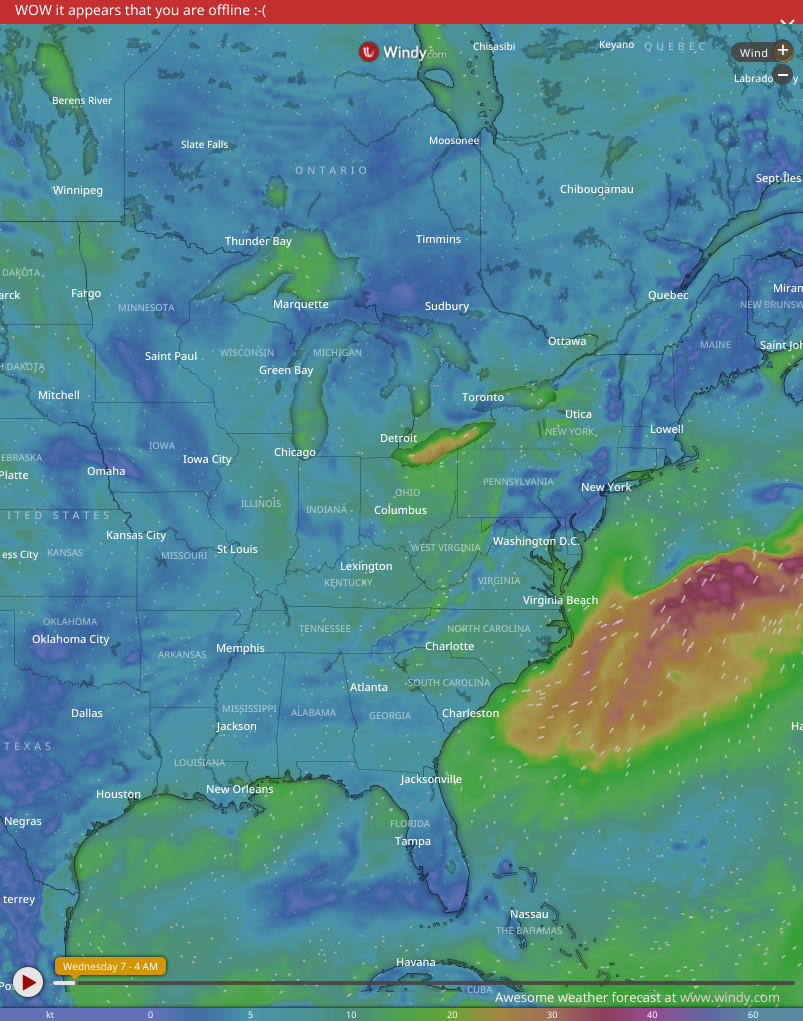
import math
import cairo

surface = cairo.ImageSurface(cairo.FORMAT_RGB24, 803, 1021)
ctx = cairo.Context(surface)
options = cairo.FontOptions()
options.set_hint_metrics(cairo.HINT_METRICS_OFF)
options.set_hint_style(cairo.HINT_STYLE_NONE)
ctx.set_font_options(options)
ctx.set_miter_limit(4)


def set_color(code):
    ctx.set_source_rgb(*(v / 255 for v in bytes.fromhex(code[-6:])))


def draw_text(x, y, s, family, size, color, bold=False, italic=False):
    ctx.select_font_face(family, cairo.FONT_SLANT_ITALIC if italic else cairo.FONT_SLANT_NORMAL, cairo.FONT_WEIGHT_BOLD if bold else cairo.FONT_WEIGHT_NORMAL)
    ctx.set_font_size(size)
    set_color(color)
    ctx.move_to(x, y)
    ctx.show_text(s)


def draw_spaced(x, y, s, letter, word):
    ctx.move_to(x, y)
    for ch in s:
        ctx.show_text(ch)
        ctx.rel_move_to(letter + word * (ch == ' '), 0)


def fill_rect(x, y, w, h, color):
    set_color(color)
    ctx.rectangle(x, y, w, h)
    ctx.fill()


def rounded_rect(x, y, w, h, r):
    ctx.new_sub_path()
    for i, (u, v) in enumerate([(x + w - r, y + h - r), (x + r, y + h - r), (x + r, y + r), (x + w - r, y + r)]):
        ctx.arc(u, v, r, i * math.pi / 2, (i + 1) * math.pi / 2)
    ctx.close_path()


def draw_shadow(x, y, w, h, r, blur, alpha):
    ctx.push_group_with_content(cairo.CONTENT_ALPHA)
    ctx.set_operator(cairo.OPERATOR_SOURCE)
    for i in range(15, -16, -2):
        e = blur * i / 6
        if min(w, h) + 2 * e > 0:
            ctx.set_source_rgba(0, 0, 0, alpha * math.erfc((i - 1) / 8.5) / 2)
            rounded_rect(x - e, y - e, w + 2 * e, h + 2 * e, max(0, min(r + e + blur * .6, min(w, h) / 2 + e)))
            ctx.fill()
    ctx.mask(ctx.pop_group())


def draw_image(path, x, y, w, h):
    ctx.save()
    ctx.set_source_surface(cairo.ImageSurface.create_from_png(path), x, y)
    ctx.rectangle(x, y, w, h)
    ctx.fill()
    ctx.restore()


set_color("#ffffff")
ctx.paint()
fill_rect(0, 0, 803, 24, "#c42f2f")
draw_text(15, 15, "WOW it appears that you are offline :-(", "Noto Sans", 14, "#ffffff")
draw_image("assets/img1.png", 780, 19, 15, 5)
draw_image("assets/img6.png", 754, 24, 49, 200)
draw_image("assets/img3.png", 0, 24, 242, 200)
draw_image("assets/img4.png", 242, 24, 256, 200)
draw_image("assets/img5.png", 498, 24, 256, 200)
draw_image("assets/img7.png", 0, 224, 242, 256)
draw_image("assets/img8.png", 242, 224, 256, 256)
draw_image("assets/img9.png", 498, 224, 256, 256)
draw_image("assets/img10.png", 754, 224, 49, 256)
draw_image("assets/img11.png", 0, 480, 242, 256)
draw_image("assets/img12.png", 242, 480, 256, 256)
draw_image("assets/img13.png", 498, 480, 256, 256)
draw_image("assets/img14.png", 754, 480, 49, 256)
draw_image("assets/img15.png", 0, 736, 242, 256)
draw_image("assets/img16.png", 242, 736, 256, 256)
draw_image("assets/img17.png", 498, 736, 256, 256)
draw_image("assets/img18.png", 754, 736, 49, 256)
draw_image("assets/img19.png", 0, 992, 242, 16)
draw_image("assets/img20.png", 242, 992, 256, 16)
draw_image("assets/img21.png", 498, 992, 256, 16)
draw_image("assets/img22.png", 754, 992, 49, 16)
draw_image("assets/img23.png", 0, 24, 803, 984)
draw_image("assets/img27.png", 754, 24, 49, 200)
draw_image("assets/img26.png", 498, 24, 256, 200)
ctx.set_source_rgba(0.267, 0.255, 0.255, 0.84)
rounded_rect(731, 42, 62, 20, 10)
ctx.fill()
set_color("#000000")
draw_shadow(773, 42, 20, 20, 10, 1, 1)
set_color("#d49500")
ctx.arc(783, 52, 10, 0, 2 * math.pi)
ctx.fill()
draw_image("assets/img40.png", 777, 50, 11, 7)
ctx.set_source_rgba(0.267, 0.255, 0.255, 0.84)
rounded_rect(772, 39, 21, 22, 10.5)
ctx.fill()
draw_image("assets/img2.png", 777, 44, 12, 11)
draw_text(734, 82, "Labrado", "Noto Sans Medium", 10, "#ffffff")
ctx.set_source_rgba(0.267, 0.255, 0.255, 0.84)
ctx.new_path()
ctx.arc(782.5, 74.5, 10.5, 0, 2 * math.pi)
ctx.fill()
fill_rect(778, 74, 10, 2, "#ffffff")
draw_image("assets/img24.png", 0, 24, 242, 200)
draw_image("assets/img25.png", 242, 24, 256, 200)
draw_image("assets/img28.png", 0, 224, 242, 256)
draw_image("assets/img29.png", 242, 224, 256, 256)
draw_image("assets/img30.png", 498, 224, 256, 256)
draw_image("assets/img31.png", 754, 224, 49, 184)
draw_image("assets/img32.png", 0, 480, 242, 256)
draw_image("assets/img33.png", 242, 480, 256, 256)
draw_image("assets/img34.png", 498, 480, 157, 215)
draw_image("assets/img35.png", 0, 736, 242, 256)
draw_image("assets/img36.png", 242, 736, 256, 256)
draw_image("assets/img37.png", 498, 863, 159, 129)
draw_text(52, 104, "Berens River", "Noto Sans Medium", 10, "#ffffff")
draw_text(181, 148, "Slate Falls", "Noto Sans Medium", 10, "#ffffff")
draw_text(53, 194, "Winnipeg", "Noto Sans Medium", 11, "#ffffff")
draw_text(473, 50, "Chisasibi", "Noto Sans Medium", 10, "#ffffff")
draw_text(429, 144, "Moosonee", "Noto Sans Medium", 10, "#ffffff")
ctx.set_font_size(10.5)
set_color("#a1bfd3")
draw_spaced(295, 174, "ONTARIO", 4, 0)
draw_text(599, 48, "Keyano", "Noto Sans Medium", 10, "#ffffff")
ctx.set_font_size(10.5)
set_color("#a3c5d4")
draw_spaced(644, 50, "QUEBEC", 4, 0)
draw_text(560, 193, "Chibougamau", "Noto Sans Medium", 11, "#ffffff")
draw_text(793, 82, "y", "Noto Sans Medium", 10, "#ffffff")
draw_text(756, 182, "Sept-Îles", "Noto Sans Medium", 11, "#ffffff")
draw_text(2, 276, "DAKOTA", "Noto Sans Medium", 9.5, "#a6c9bf")
draw_text(-2, 299, "arck", "Noto Sans Medium", 11, "#ffffff")
draw_text(71, 297, "Fargo", "Noto Sans Medium", 11, "#ffffff")
draw_text(118, 311, "MINNESOTA", "Noto Sans Medium", 9.5, "#a1bfd3")
draw_text(145, 360, "Saint Paul", "Noto Sans Medium", 11, "#ffffff")
draw_text(-3, 370, "H DAKOTA", "Noto Sans Medium", 9.5, "#a6c8c7")
draw_text(38, 399, "Mitchell", "Noto Sans Medium", 11, "#ffffff")
draw_text(149, 449, "IOWA", "Noto Sans Medium", 9.5, "#a1bfd3")
draw_text(1, 461, "EBRASKA", "Noto Sans Medium", 9.5, "#a6c8c7")
draw_text(183, 463, "Iowa City", "Noto Sans Medium", 11, "#ffffff")
draw_text(-2, 479, "Platte", "Noto Sans Medium", 11, "#ffffff")
draw_text(87, 475, "Omaha", "Noto Sans Medium", 11, "#ffffff")
draw_text(225, 245, "Thunder Bay", "Noto Sans Medium", 11, "#ffffff")
draw_text(416, 243, "Timmins", "Noto Sans Medium", 11, "#ffffff")
draw_text(273, 308, "Marquette", "Noto Sans Medium", 11, "#ffffff")
draw_text(425, 310, "Sudbury", "Noto Sans Medium", 11, "#ffffff")
draw_text(220, 356, "WISCONSIN", "Noto Sans Medium", 9.5, "#a3c5d4")
draw_text(313, 356, "MICHIGAN", "Noto Sans Medium", 9.5, "#a2c3cd")
draw_text(259, 374, "Green Bay", "Noto Sans Medium", 11, "#ffffff")
draw_text(462, 401, "Toronto", "Noto Sans Medium", 11, "#ffffff")
draw_text(380, 442, "Detroit", "Noto Sans Medium", 11, "#ffffff")
draw_text(274, 456, "Chicago", "Noto Sans Medium", 11, "#ffffff")
draw_text(648, 299, "Quebec", "Noto Sans Medium", 11, "#ffffff")
draw_text(548, 345, "Ottawa", "Noto Sans Medium", 11, "#ffffff")
draw_text(700, 348, "MAINE", "Noto Sans Medium", 9.5, "#9eb6d1")
draw_text(565, 418, "Utica", "Noto Sans Medium", 11, "#ffffff")
draw_text(545, 435, "NEW YORK", "Noto Sans Medium", 9.5, "#a7ccb8")
draw_text(650, 433, "Lowell", "Noto Sans Medium", 11, "#ffffff")
draw_text(773, 292, "Miram", "Noto Sans Medium", 11, "#ffffff")
draw_text(740, 308, "NEW BRUNSW", "Noto Sans Medium", 9.5, "#9eb6d1")
draw_text(760, 349, "Saint Joh", "Noto Sans Medium", 11, "#ffffff")
ctx.set_font_size(10.5)
set_color("#a1bfd3")
draw_spaced(7, 519, "ITED STATES", 4, 0)
draw_text(106, 539, "Kansas City", "Noto Sans Medium", 11, "#ffffff")
draw_text(2, 558, "ess City", "Noto Sans Medium", 10, "#ffffff")
draw_text(47, 556, "KANSAS", "Noto Sans Medium", 9.5, "#a3c5d4")
draw_text(161, 559, "MISSOURI", "Noto Sans Medium", 9.5, "#a3c5d4")
draw_text(217, 553, "St Louis", "Noto Sans Medium", 11, "#ffffff")
draw_text(43, 625, "OKLAHOMA", "Noto Sans Medium", 9.5, "#9eb6d1")
draw_text(32, 643, "Oklahoma City", "Noto Sans Medium", 11, "#ffffff")
draw_text(158, 658, "ARKANSAS", "Noto Sans Medium", 9.5, "#a3c5d4")
draw_text(216, 652, "Memphis", "Noto Sans Medium", 11, "#ffffff")
draw_text(71, 717, "Dallas", "Noto Sans Medium", 11, "#ffffff")
draw_text(217, 730, "Jackson", "Noto Sans Medium", 11, "#ffffff")
draw_text(395, 496, "OHIO", "Noto Sans Medium", 9.5, "#a7ccb8")
draw_text(241, 507, "ILLINOIS", "Noto Sans Medium", 9.5, "#a6c8c7")
draw_text(306, 513, "INDIANA", "Noto Sans Medium", 9.5, "#a6c8c7")
draw_text(374, 514, "Columbus", "Noto Sans Medium", 11, "#ffffff")
draw_text(411, 551, "WEST VIRGINIA", "Noto Sans Medium", 9.5, "#a6c9bf")
draw_text(340, 570, "Lexington", "Noto Sans Medium", 11, "#ffffff")
draw_text(324, 586, "KENTUCKY", "Noto Sans Medium", 9.5, "#a6c8c7")
draw_text(299, 632, "TENNESSEE", "Noto Sans Medium", 9.5, "#a6c8c7")
draw_text(447, 632, "NORTH CAROLINA", "Noto Sans Medium", 9.5, "#a6c9bf")
draw_text(425, 650, "Charlotte", "Noto Sans Medium", 11, "#ffffff")
draw_text(350, 691, "Atlanta", "Noto Sans Medium", 11, "#ffffff")
draw_text(408, 686, "SOUTH CAROLINA", "Noto Sans Medium", 9.5, "#a6c8c7")
draw_text(222, 712, "MISSISSIPPI", "Noto Sans Medium", 9.5, "#a3c5d4")
draw_text(291, 716, "ALABAMA", "Noto Sans Medium", 9.5, "#a1bfd3")
draw_text(369, 719, "GEORGIA", "Noto Sans Medium", 9.5, "#a3c5d4")
draw_text(442, 717, "Charleston", "Noto Sans Medium", 11, "#ffffff")
draw_text(483, 485, "PENNSYLVANIA", "Noto Sans Medium", 9.5, "#a6c8c7")
draw_text(581, 491, "New York", "Noto Sans Medium", 11, "#ffffff")
draw_text(493, 545, "Washington D.C.", "Noto Sans Medium", 11, "#ffffff")
draw_text(478, 584, "VIRGINIA", "Noto Sans Medium", 9.5, "#a6c8c7")
draw_text(523, 604, "Virginia Beach", "Noto Sans Medium", 11, "#ffffff")
draw_text(791, 730, "Ha", "Noto Sans Medium", 11, "#ffffff")
ctx.set_font_size(10.5)
set_color("#9eb6d1")
draw_spaced(4, 750, "TEXAS", 4, 0)
draw_text(174, 766, "LOUISIANA", "Noto Sans Medium", 9.5, "#a6c8c7")
draw_text(96, 798, "Houston", "Noto Sans Medium", 11, "#ffffff")
draw_text(206, 793, "New Orleans", "Noto Sans Medium", 11, "#ffffff")
draw_text(4, 825, "Negras", "Noto Sans Medium", 11, "#ffffff")
draw_text(3, 903, "terrey", "Noto Sans Medium", 11, "#ffffff")
draw_text(-2, 990, "Pot", "Noto Sans Medium", 11, "#ffffff")
draw_text(401, 783, "Jacksonville", "Noto Sans Medium", 11, "#ffffff")
draw_text(390, 827, "FLORIDA", "Noto Sans Medium", 9.5, "#a6c8c7")
draw_text(395, 845, "Tampa", "Noto Sans Medium", 11, "#ffffff")
draw_text(396, 966, "Havana", "Noto Sans Medium", 11, "#ffffff")
draw_text(467, 993, "CUBA", "Noto Sans Medium", 9.5, "#a1bfd3")
draw_text(510, 918, "Nassau", "Noto Sans Medium", 11, "#ffffff")
draw_text(496, 934, "THE BAHAMAS", "Noto Sans Medium", 9.5, "#a4c3c0")
draw_image("assets/img38.png", 357, 40, 24, 24)
draw_image("assets/img39.png", 382, 44, 66, 19)
ctx.select_font_face("Noto Sans")
ctx.set_font_size(11)
set_color("#ffffff")
draw_spaced(740, 57, "Wind", 0.5, 0)
set_color("#000000")
draw_shadow(13, 967, 30, 30, 15, 2, 1)
set_color("#e5e5e5")
ctx.arc(28, 982, 15, 0, 2 * math.pi)
ctx.fill()
draw_image("assets/img41.png", 22, 974, 15, 17)
set_color("#000000")
draw_shadow(55, 957, 111, 18, 5, 2, 1)
set_color("#d49500")
rounded_rect(55, 957, 111, 18, 5)
ctx.fill()
draw_text(63, 970, "Wednesday 7 - 4 AM", "Noto Sans", 10, "#ffffff")
set_color("#d49500")
ctx.new_path()
ctx.move_to(70, 975)
ctx.line_to(80, 975)
ctx.line_to(75, 980)
ctx.close_path()
ctx.fill()
ctx.set_source_rgba(0.267, 0.255, 0.255, 0.84)
rounded_rect(53, 981, 742, 4, 2)
ctx.fill()
set_color("#e5e5e5")
ctx.new_path()
ctx.move_to(55, 981)
ctx.line_to(75, 981)
ctx.line_to(75, 985)
ctx.line_to(55, 985)
ctx.curve_to(54, 985, 53, 984, 53, 983)
ctx.curve_to(53, 982, 54, 981, 55, 981)
ctx.close_path()
ctx.fill()
fill_rect(75, 981, 3, 4, "#946051")
set_color("#000000")
draw_shadow(0, 1008, 803, 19, 0, 2, 1)
draw_text(495, 1002, "Awesome weather forecast at", "Noto Sans", 13, "#fff3e1")
draw_text(680, 1002, "www.windy.com", "Noto Sans", 13, "#e6cece")
gradient = cairo.LinearGradient(0, 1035, 803, 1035)
gradient.add_color_stop_rgba(0, 0.384, 0.443, 0.722, 1)
gradient.add_color_stop_rgba(0.19, 0.384, 0.443, 0.722, 1)
gradient.add_color_stop_rgba(0.25, 0.239, 0.431, 0.639, 1)
gradient.add_color_stop_rgba(0.31, 0.29, 0.58, 0.667, 1)
gradient.add_color_stop_rgba(0.38, 0.29, 0.573, 0.58, 1)
gradient.add_color_stop_rgba(0.44, 0.302, 0.557, 0.486, 1)
gradient.add_color_stop_rgba(0.5, 0.298, 0.643, 0.298, 1)
gradient.add_color_stop_rgba(0.56, 0.404, 0.643, 0.212, 1)
gradient.add_color_stop_rgba(0.62, 0.635, 0.529, 0.251, 1)
gradient.add_color_stop_rgba(0.69, 0.635, 0.427, 0.361, 1)
gradient.add_color_stop_rgba(0.75, 0.553, 0.247, 0.361, 1)
gradient.add_color_stop_rgba(0.81, 0.592, 0.294, 0.569, 1)
gradient.add_color_stop_rgba(0.88, 0.373, 0.392, 0.627, 1)
gradient.add_color_stop_rgba(0.94, 0.357, 0.533, 0.631, 1)
gradient.add_color_stop_rgba(1, 0.357, 0.533, 0.631, 1)
ctx.set_source(gradient)
ctx.rectangle(0, 1008, 803, 13)
ctx.fill()
draw_text(46, 1018, "kt", "Noto Sans", 9, "#ffffff")
draw_text(148, 1018, "0", "Noto Sans", 9, "#ffffff")
draw_text(248, 1018, "5", "Noto Sans", 9, "#ffffff")
draw_text(346, 1018, "10", "Noto Sans", 9, "#ffffff")
draw_text(447, 1018, "20", "Noto Sans", 9, "#ffffff")
draw_text(547, 1018, "30", "Noto Sans", 9, "#ffffff")
draw_text(647, 1018, "40", "Noto Sans", 9, "#ffffff")
draw_text(748, 1018, "60", "Noto Sans", 9, "#ffffff")
surface.write_to_png("output.png")
